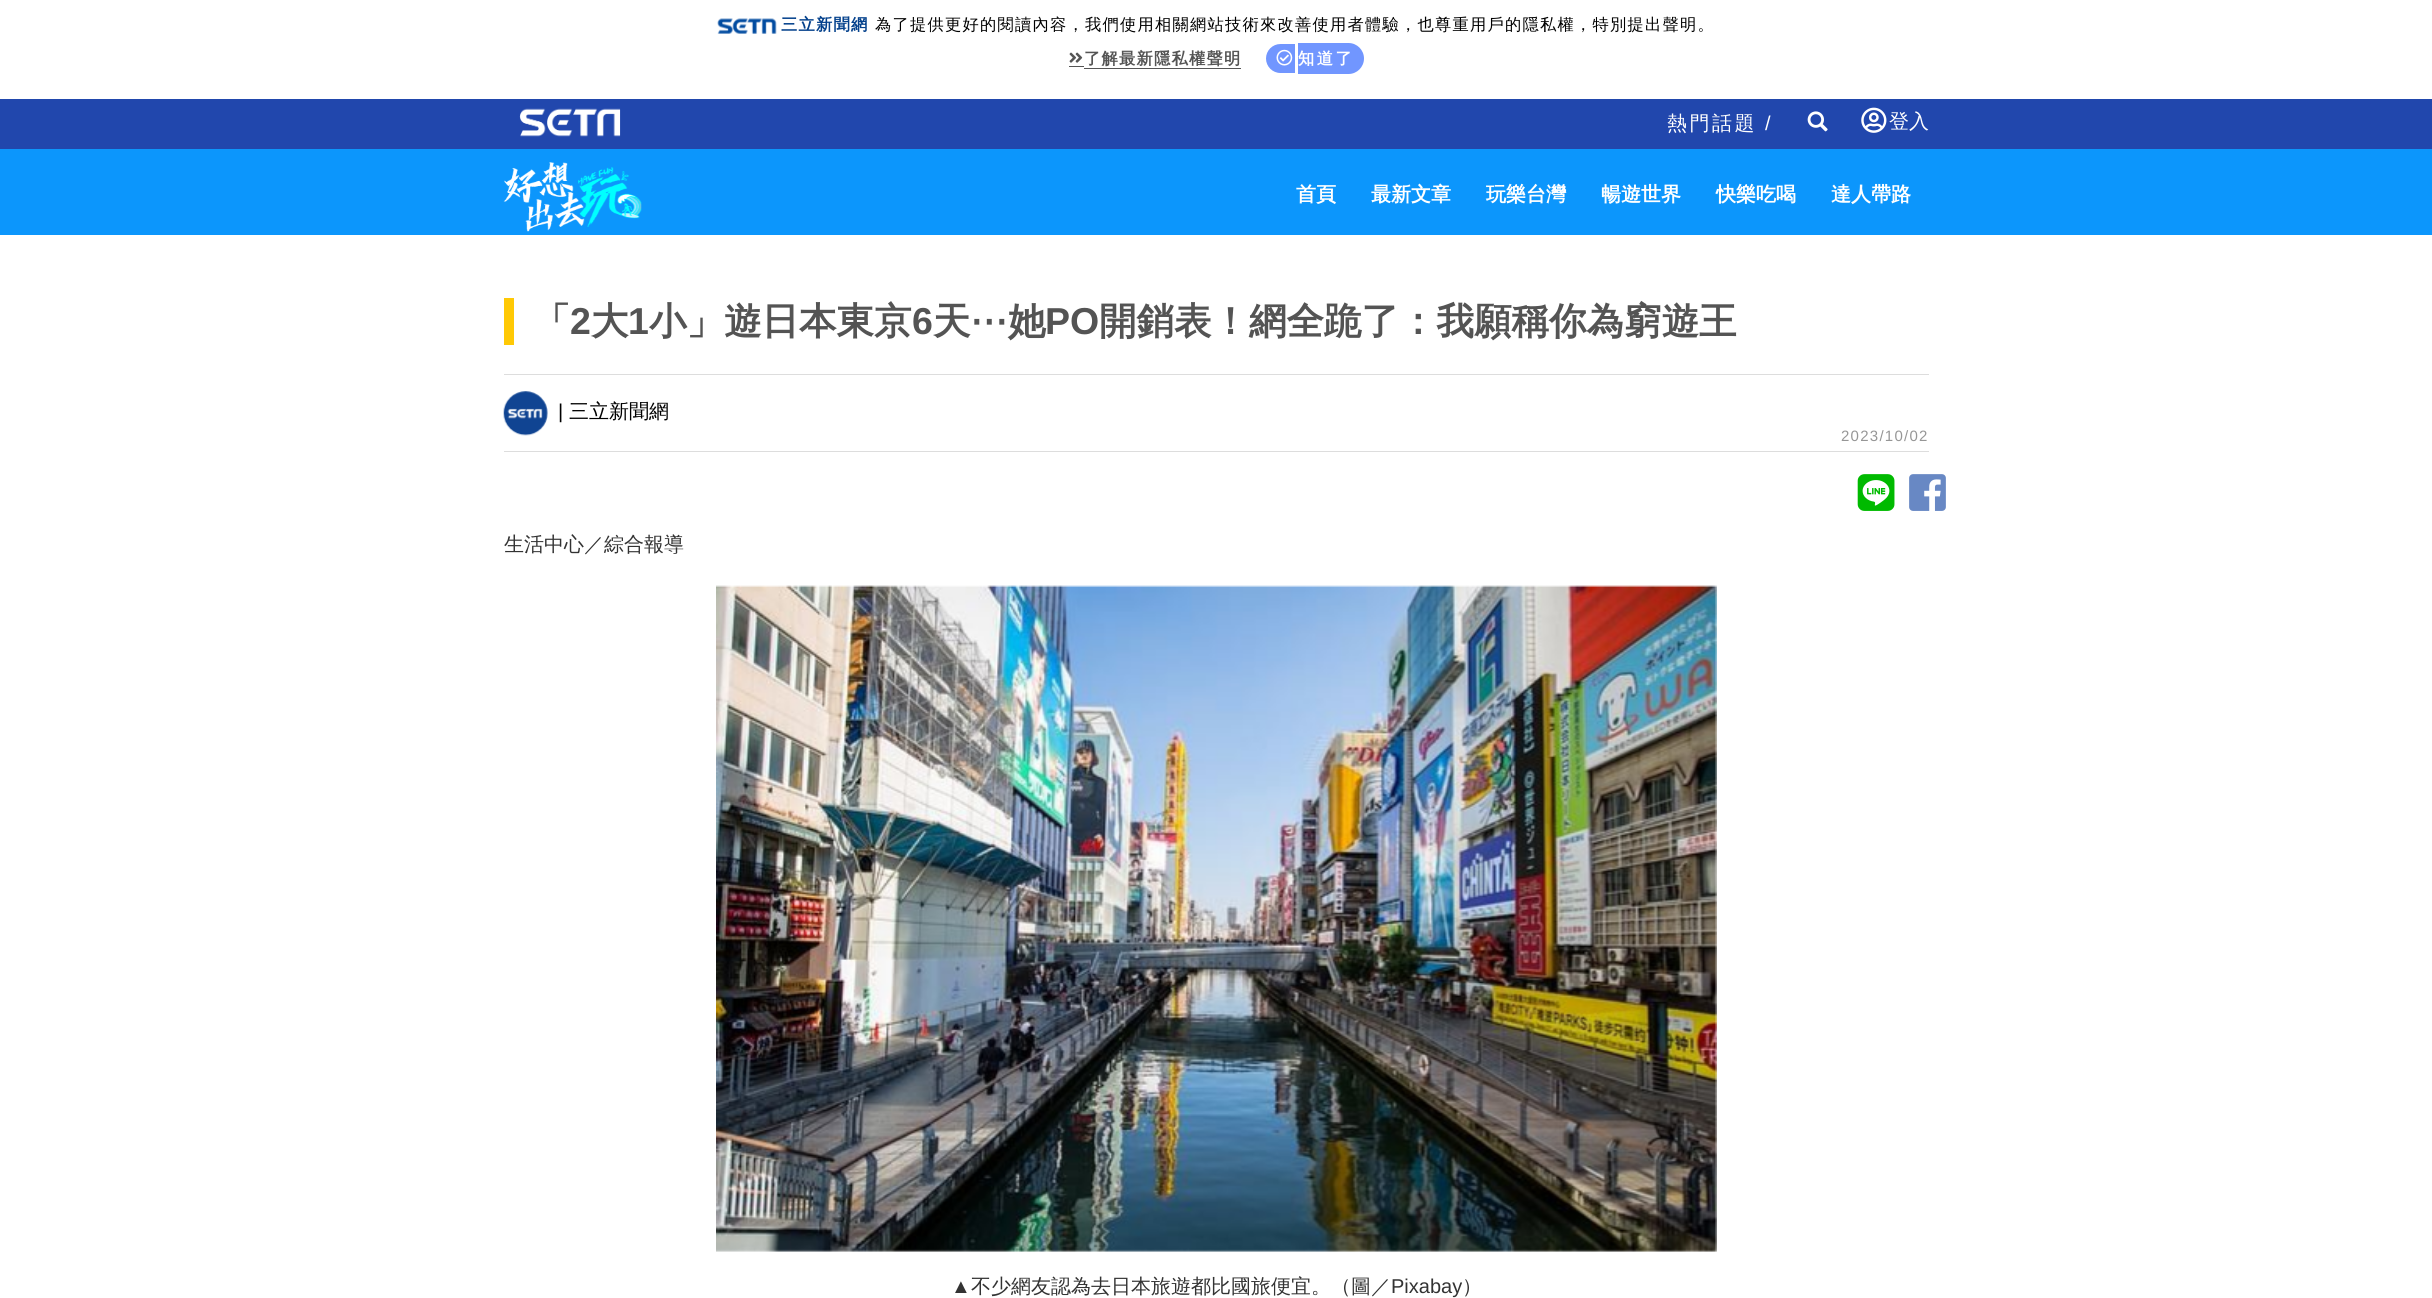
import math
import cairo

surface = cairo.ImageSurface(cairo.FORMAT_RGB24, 2432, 1298)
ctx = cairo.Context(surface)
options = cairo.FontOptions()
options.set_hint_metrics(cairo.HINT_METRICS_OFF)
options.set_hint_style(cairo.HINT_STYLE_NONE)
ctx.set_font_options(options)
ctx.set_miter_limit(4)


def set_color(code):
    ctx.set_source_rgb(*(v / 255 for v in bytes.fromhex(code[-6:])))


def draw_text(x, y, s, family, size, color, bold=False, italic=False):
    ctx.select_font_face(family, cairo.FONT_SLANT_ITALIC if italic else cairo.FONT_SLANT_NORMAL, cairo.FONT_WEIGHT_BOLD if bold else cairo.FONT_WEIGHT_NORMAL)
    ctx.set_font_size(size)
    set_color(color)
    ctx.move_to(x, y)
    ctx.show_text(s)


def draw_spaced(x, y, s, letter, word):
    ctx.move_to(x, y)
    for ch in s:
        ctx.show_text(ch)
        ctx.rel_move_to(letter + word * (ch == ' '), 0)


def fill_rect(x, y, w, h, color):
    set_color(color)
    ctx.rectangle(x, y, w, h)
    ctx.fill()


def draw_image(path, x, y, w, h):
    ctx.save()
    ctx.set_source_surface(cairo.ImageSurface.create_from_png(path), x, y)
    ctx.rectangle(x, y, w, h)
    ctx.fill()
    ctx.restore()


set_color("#ffffff")
ctx.paint()
draw_image("assets/img1.png", 717, 18, 60, 16)
ctx.select_font_face("WenQuanYi Zen Hei", cairo.FONT_SLANT_NORMAL, cairo.FONT_WEIGHT_BOLD)
ctx.set_font_size(16.25)
set_color("#04418c")
draw_spaced(781, 30, "三立新聞網", 1.25, 0)
ctx.select_font_face("WenQuanYi Zen Hei Medium")
set_color("#000000")
draw_spaced(875, 30, "為了提供更好的閱讀內容，我們使用相關網站技術來改善使用者體驗，也尊重用戶的隱私權，特別提出聲明。", 1.25, 0)
fill_rect(1069, 66, 15, 1, "#555555")
fill_rect(1084, 68, 157, 1, "#555555")
draw_image("assets/img2.png", 1069, 52, 14, 11)
ctx.select_font_face("WenQuanYi Zen Hei", cairo.FONT_SLANT_NORMAL, cairo.FONT_WEIGHT_BOLD)
set_color("#545454")
draw_spaced(1084, 64, "了解最新隱私權聲明", 1.25, 0)
set_color("#7196ff")
ctx.new_path()
ctx.move_to(1280.5, 44)
ctx.line_to(1295, 44)
ctx.line_to(1295, 73)
ctx.line_to(1280.5, 73)
ctx.curve_to(1272.5, 73, 1266, 66.5, 1266, 58.5)
ctx.curve_to(1266, 50.5, 1272.5, 44, 1280.5, 44)
ctx.close_path()
ctx.fill()
ctx.new_path()
ctx.move_to(1298, 43)
ctx.line_to(1348.5, 43)
ctx.curve_to(1357, 43, 1364, 50, 1364, 58.5)
ctx.curve_to(1364, 67, 1357, 74, 1348.5, 74)
ctx.line_to(1298, 74)
ctx.close_path()
ctx.fill()
draw_image("assets/img3.png", 1276, 49, 17, 17)
set_color("#ffffff")
draw_spaced(1298, 64, "知道了", 2.5, 0)
fill_rect(0, 99, 2432, 50, "#2147ad")
draw_image("assets/img4.png", 519, 108, 102, 29)
ctx.select_font_face("WenQuanYi Zen Hei Medium")
ctx.set_font_size(20)
set_color("#ffffff")
draw_spaced(1667, 130, "熱門話題", 2.5, 0)
ctx.select_font_face("Liberation Sans")
draw_spaced(1765, 130, "/", 2.5, 0)
draw_image("assets/img5.png", 1807, 111, 21, 21)
draw_image("assets/img6.png", 1861, 107, 26, 26)
draw_text(1889, 128, "登入", "WenQuanYi Zen Hei Medium", 20, "#ffffff")
fill_rect(0, 149, 2432, 86, "#0c96fc")
draw_image("assets/img7.png", 503, 162, 139, 70)
draw_text(1296, 201, "首頁", "WenQuanYi Zen Hei", 20, "#ffffff", bold=True)
draw_text(1371, 201, "最新文章", "WenQuanYi Zen Hei", 20, "#ffffff", bold=True)
draw_text(1486, 201, "玩樂台灣", "WenQuanYi Zen Hei", 20, "#ffffff", bold=True)
draw_text(1601, 201, "暢遊世界", "WenQuanYi Zen Hei", 20, "#ffffff", bold=True)
draw_text(1716, 201, "快樂吃喝", "WenQuanYi Zen Hei", 20, "#ffffff", bold=True)
draw_text(1831, 201, "達人帶路", "WenQuanYi Zen Hei", 20, "#ffffff", bold=True)
fill_rect(504, 298, 10, 47, "#ffc905")
draw_text(533, 334, "「", "WenQuanYi Zen Hei", 37.5, "#545454", bold=True)
draw_text(570, 334, "2", "Liberation Sans", 37.5, "#545454", bold=True)
draw_text(591, 334, "大", "WenQuanYi Zen Hei", 37.5, "#545454", bold=True)
draw_text(628, 334, "1", "Liberation Sans", 37.5, "#545454", bold=True)
draw_text(649, 334, "小」遊日本東京", "WenQuanYi Zen Hei", 37.5, "#545454", bold=True)
draw_text(912, 334, "6", "Liberation Sans", 37.5, "#545454", bold=True)
draw_text(933, 334, "天", "WenQuanYi Zen Hei", 37.5, "#545454", bold=True)
draw_text(970, 334, "⋯", "DejaVu Sans", 37.5, "#545454", bold=True)
draw_text(1008, 334, "她", "WenQuanYi Zen Hei", 37.5, "#545454", bold=True)
draw_text(1045, 334, "PO", "Liberation Sans", 37.5, "#545454", bold=True)
draw_text(1099, 334, "開銷表！網全跪了：我願稱你為窮遊王", "WenQuanYi Zen Hei", 37.5, "#545454", bold=True)
fill_rect(504, 374, 1425, 1, "#dddddd")
fill_rect(504, 451, 1425, 1, "#dddddd")
draw_image("assets/img8.png", 503, 391, 45, 45)
draw_text(558, 418, "|", "Liberation Sans", 20, "#000000")
draw_text(569, 418, "三立新聞網", "WenQuanYi Zen Hei Medium", 20, "#000000")
ctx.select_font_face("Liberation Sans")
ctx.set_font_size(15)
set_color("#969696")
draw_spaced(1841, 441, "2023/10/02", 1.25, 0)
draw_image("assets/img9.png", 1857, 474, 38, 37)
draw_image("assets/img10.png", 1909, 474, 37, 37)
draw_text(504, 551, "生活中心／綜合報導", "WenQuanYi Zen Hei Medium", 20, "#333333")
draw_image("assets/img11.png", 716, 585, 1001, 667)
draw_text(951, 1293, "▲", "Liberation Sans", 20, "#333333")
draw_text(971, 1293, "不少網友認為去日本旅遊都比國旅便宜。（圖／", "WenQuanYi Zen Hei Medium", 20, "#333333")
draw_text(1391, 1293, "Pixabay", "Liberation Sans", 20, "#333333")
draw_text(1462, 1293, "）", "WenQuanYi Zen Hei Medium", 20, "#333333")
surface.write_to_png("output.png")
